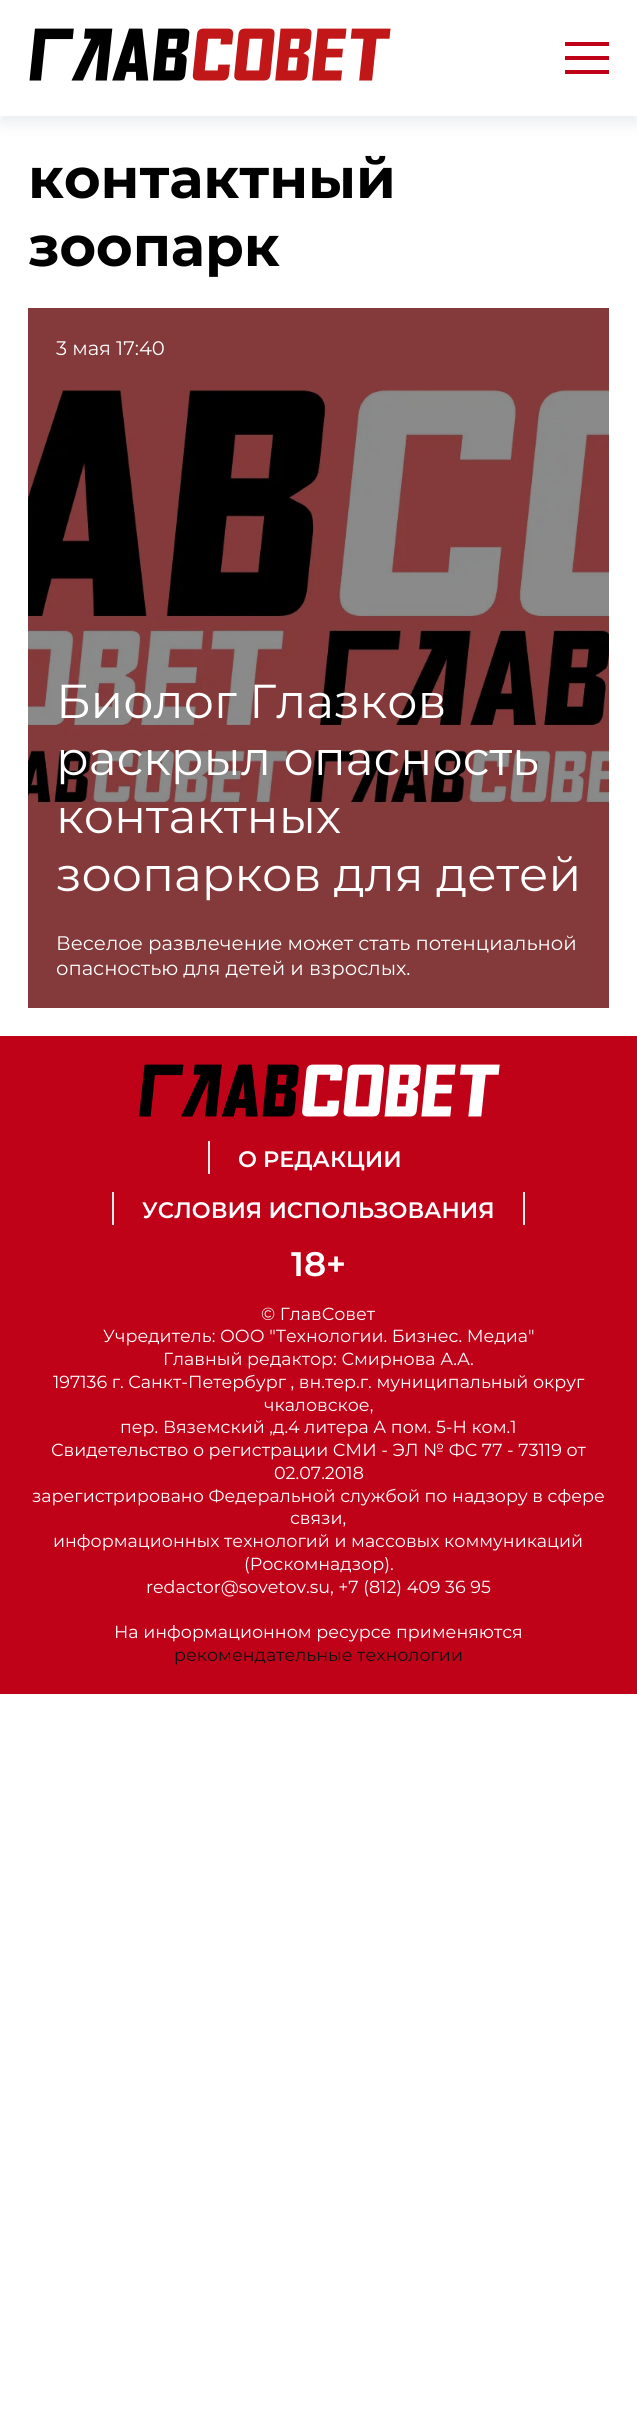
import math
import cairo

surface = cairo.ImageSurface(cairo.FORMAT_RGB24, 637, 2423)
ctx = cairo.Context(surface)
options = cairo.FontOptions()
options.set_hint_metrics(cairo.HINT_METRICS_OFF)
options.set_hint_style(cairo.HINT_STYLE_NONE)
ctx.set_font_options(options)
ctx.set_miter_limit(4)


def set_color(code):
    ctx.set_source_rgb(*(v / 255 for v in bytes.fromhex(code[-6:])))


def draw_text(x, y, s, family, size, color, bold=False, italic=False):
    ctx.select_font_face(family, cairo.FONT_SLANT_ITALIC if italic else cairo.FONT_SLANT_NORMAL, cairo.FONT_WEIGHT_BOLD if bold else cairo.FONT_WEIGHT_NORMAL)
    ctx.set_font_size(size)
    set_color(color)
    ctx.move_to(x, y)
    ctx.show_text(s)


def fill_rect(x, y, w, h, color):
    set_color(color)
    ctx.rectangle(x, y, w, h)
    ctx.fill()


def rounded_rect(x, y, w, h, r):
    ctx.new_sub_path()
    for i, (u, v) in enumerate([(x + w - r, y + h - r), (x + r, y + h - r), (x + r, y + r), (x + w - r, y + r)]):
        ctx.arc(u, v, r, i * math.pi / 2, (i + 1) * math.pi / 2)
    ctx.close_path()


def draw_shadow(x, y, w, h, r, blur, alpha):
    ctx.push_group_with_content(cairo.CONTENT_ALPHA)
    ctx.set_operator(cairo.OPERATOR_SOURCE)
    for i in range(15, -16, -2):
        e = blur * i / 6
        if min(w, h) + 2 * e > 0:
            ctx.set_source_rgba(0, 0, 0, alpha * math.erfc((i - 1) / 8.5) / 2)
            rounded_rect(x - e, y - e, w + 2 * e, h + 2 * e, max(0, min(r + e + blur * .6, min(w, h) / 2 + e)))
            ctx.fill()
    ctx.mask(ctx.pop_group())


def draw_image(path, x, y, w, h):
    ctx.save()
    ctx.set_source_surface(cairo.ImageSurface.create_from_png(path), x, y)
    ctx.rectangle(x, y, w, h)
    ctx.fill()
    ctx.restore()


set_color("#ffffff")
ctx.paint()
ctx.save()
ctx.set_fill_rule(cairo.FILL_RULE_EVEN_ODD)
ctx.new_path()
ctx.move_to(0, 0)
ctx.line_to(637, 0)
ctx.line_to(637, 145)
ctx.line_to(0, 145)
ctx.close_path()
ctx.move_to(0, 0)
ctx.line_to(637, 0)
ctx.line_to(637, 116)
ctx.line_to(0, 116)
ctx.close_path()
ctx.clip()
set_color("#223c50")
draw_shadow(0, 7, 637, 116, 0, 7, 0.1)
ctx.restore()
draw_image("assets/img1.png", 29, 28, 362, 53)
fill_rect(565, 56, 44, 4, "#c00219")
fill_rect(565, 42, 44, 4, "#c00219")
fill_rect(565, 70, 44, 4, "#c00219")
draw_text(28, 198, "контактный", "Montserrat", 56, "#000000", bold=True)
draw_text(28, 266, "зоопарк", "Montserrat", 56, "#000000", bold=True)
draw_image("assets/img2.png", 28, 308, 581, 700)
draw_text(56, 355, "3 мая 17:40", "Montserrat", 19.6, "#ffffff")
draw_text(56, 718, "Биолог Глазков", "Montserrat", 47.6, "#ffffff")
draw_text(56, 775, "раскрыл опасность", "Montserrat", 47.6, "#ffffff")
draw_text(56, 833, "контактных", "Montserrat", 47.6, "#ffffff")
draw_text(56, 891, "зоопарков для детей", "Montserrat", 47.6, "#ffffff")
draw_text(56, 950, "Веселое развлечение может стать потенциальной", "Montserrat", 19.6, "#ffffff")
draw_text(56, 975, "опасностью для детей и взрослых.", "Montserrat", 19.6, "#ffffff")
fill_rect(0, 1036, 637, 658, "#c00219")
draw_image("assets/img3.png", 139, 1064, 361, 53)
fill_rect(208, 1141, 2, 33, "#ececec")
draw_text(238, 1167, "О РЕДАКЦИИ", "Montserrat SemiBold", 22.4, "#ffffff")
fill_rect(523, 1192, 2, 33, "#ececec")
fill_rect(112, 1192, 2, 33, "#ececec")
draw_text(142, 1218, "УСЛОВИЯ ИСПОЛЬЗОВАНИЯ", "Montserrat SemiBold", 22.4, "#ffffff")
draw_text(291, 1276, "18+", "Montserrat SemiBold", 34, "#ffffff")
draw_text(261, 1320, "© ГлавСовет", "Montserrat", 17.5, "#ffffff")
draw_text(103, 1342, "Учредитель: ООО \"Технологии. Бизнес. Медиа\"", "Montserrat", 17.5, "#ffffff")
draw_text(163, 1365, "Главный редактор: Смирнова А.А.", "Montserrat", 17.5, "#ffffff")
draw_text(53, 1388, "197136 г. Санкт-Петербург , вн.тер.г. муниципальный округ", "Montserrat", 17.5, "#ffffff")
draw_text(264, 1411, "чкаловское,", "Montserrat", 17.5, "#ffffff")
draw_text(120, 1433, "пер. Вяземский ,д.4 литера А пом. 5-Н ком.1", "Montserrat", 17.5, "#ffffff")
draw_text(51, 1456, "Свидетельство о регистрации СМИ - ЭЛ № ФС 77 - 73119 от", "Montserrat", 17.5, "#ffffff")
draw_text(274, 1479, "02.07.2018", "Montserrat", 17.5, "#ffffff")
draw_text(32, 1502, "зарегистрировано Федеральной службой по надзору в сфере", "Montserrat", 17.5, "#ffffff")
draw_text(290, 1524, "связи,", "Montserrat", 17.5, "#ffffff")
draw_text(53, 1547, "информационных технологий и массовых коммуникаций", "Montserrat", 17.5, "#ffffff")
draw_text(244, 1570, "(Роскомнадзор).", "Montserrat", 17.5, "#ffffff")
draw_text(146, 1593, "redactor@sovetov.su, +7 (812) 409 36 95", "Montserrat", 17.5, "#ffffff")
draw_text(114, 1638, "На информационном ресурсе применяются", "Montserrat", 17.5, "#ffffff")
draw_text(174, 1661, "рекомендательные технологии", "Montserrat", 17.5, "#111111")
surface.write_to_png("output.png")
